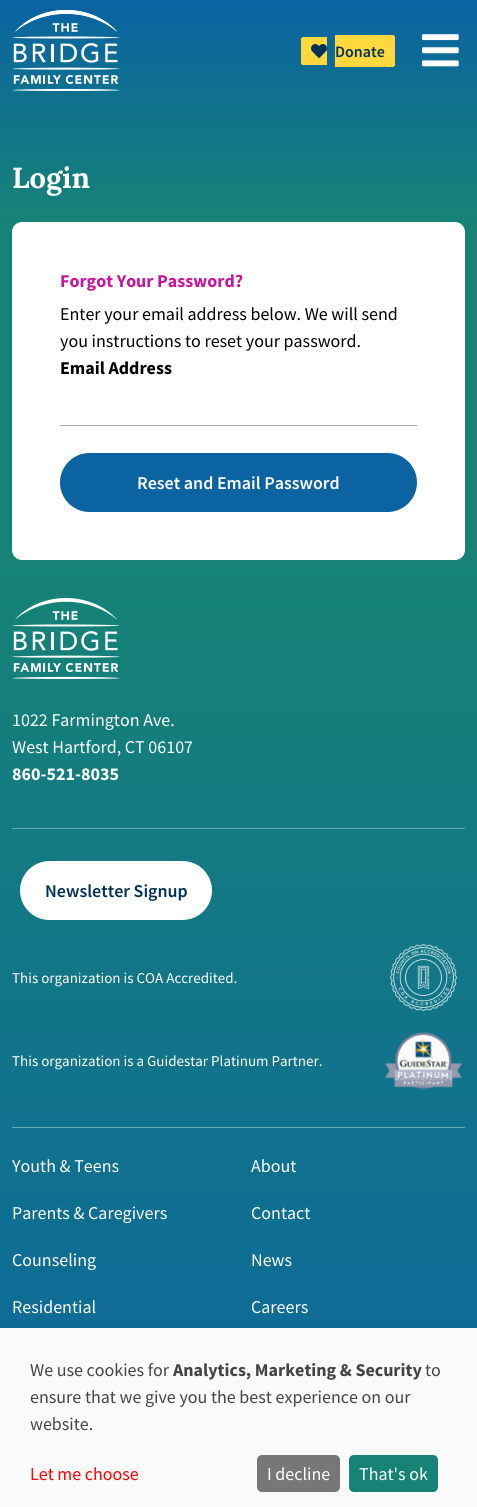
import math
import cairo

surface = cairo.ImageSurface(cairo.FORMAT_RGB24, 477, 1507)
ctx = cairo.Context(surface)
options = cairo.FontOptions()
options.set_hint_metrics(cairo.HINT_METRICS_OFF)
options.set_hint_style(cairo.HINT_STYLE_NONE)
ctx.set_font_options(options)
ctx.set_miter_limit(4)


def set_color(code):
    ctx.set_source_rgb(*(v / 255 for v in bytes.fromhex(code[-6:])))


def draw_text(x, y, s, family, size, color, bold=False, italic=False):
    ctx.select_font_face(family, cairo.FONT_SLANT_ITALIC if italic else cairo.FONT_SLANT_NORMAL, cairo.FONT_WEIGHT_BOLD if bold else cairo.FONT_WEIGHT_NORMAL)
    ctx.set_font_size(size)
    set_color(color)
    ctx.move_to(x, y)
    ctx.show_text(s)


def fill_rect(x, y, w, h, color):
    set_color(color)
    ctx.rectangle(x, y, w, h)
    ctx.fill()


def rounded_rect(x, y, w, h, r):
    ctx.new_sub_path()
    for i, (u, v) in enumerate([(x + w - r, y + h - r), (x + r, y + h - r), (x + r, y + r), (x + w - r, y + r)]):
        ctx.arc(u, v, r, i * math.pi / 2, (i + 1) * math.pi / 2)
    ctx.close_path()


def draw_image(path, x, y, w, h):
    ctx.save()
    ctx.set_source_surface(cairo.ImageSurface.create_from_png(path), x, y)
    ctx.rectangle(x, y, w, h)
    ctx.fill()
    ctx.restore()


set_color("#ffffff")
ctx.paint()
gradient = cairo.LinearGradient(239, 222, 239, 0)
gradient.add_color_stop_rgba(0, 0.086, 0.514, 0.463, 1)
gradient.add_color_stop_rgba(1, 0.043, 0.388, 0.635, 1)
ctx.set_source(gradient)
ctx.rectangle(0, 0, 477, 222)
ctx.fill()
draw_image("assets/img1.png", 12, 10, 108, 81)
set_color("#ffd83e")
ctx.new_path()
ctx.move_to(303, 37)
ctx.line_to(327, 37)
ctx.line_to(327, 65)
ctx.line_to(303, 65)
ctx.curve_to(302, 65, 301, 64, 301, 63)
ctx.line_to(301, 39)
ctx.curve_to(301, 38, 302, 37, 303, 37)
ctx.close_path()
ctx.fill()
draw_image("assets/img2.png", 311, 44, 16, 14)
ctx.new_path()
ctx.move_to(335, 35)
ctx.line_to(393, 35)
ctx.curve_to(394, 35, 395, 36, 395, 37)
ctx.line_to(395, 65)
ctx.curve_to(395, 66, 394, 67, 393, 67)
ctx.line_to(335, 67)
ctx.close_path()
ctx.fill()
draw_text(335, 57, "Donate", "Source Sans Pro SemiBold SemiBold", 16, "#003257")
draw_image("assets/img3.png", 422, 34, 37, 33)
draw_text(12, 188, "Login", "Lora", 29, "#ffffff", bold=True)
fill_rect(0, 222, 477, 338, "#168376")
set_color("#ffffff")
rounded_rect(12, 222, 453, 338, 10)
ctx.fill()
draw_text(60, 287, "Forgot Your Password?", "Source Sans Pro", 18, "#c7169e", bold=True)
draw_text(60, 320, "Enter your email address below. We will send", "Source Sans Pro", 18, "#000000")
draw_text(60, 347, "you instructions to reset your password.", "Source Sans Pro", 18, "#000000")
draw_text(60, 374, "Email Address", "Source Sans Pro", 18, "#000000", bold=True)
fill_rect(60, 425, 357, 1, "#ababab")
set_color("#0b63a2")
rounded_rect(60, 453, 357, 59, 29.5)
ctx.fill()
draw_text(137, 489, "Reset and Email Password", "Source Sans Pro SemiBold SemiBold", 18, "#ffffff")
gradient = cairo.LinearGradient(239, 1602, 239, 560)
gradient.add_color_stop_rgba(0, 0.043, 0.388, 0.635, 1)
gradient.add_color_stop_rgba(1, 0.086, 0.514, 0.463, 1)
ctx.set_source(gradient)
ctx.rectangle(0, 560, 477, 768)
ctx.fill()
draw_image("assets/img4.png", 12, 598, 108, 81)
draw_text(12, 726, "1022 Farmington Ave.", "Source Sans Pro", 18, "#ffffff")
draw_text(12, 753, "West Hartford, CT 06107", "Source Sans Pro", 18, "#ffffff")
draw_text(12, 780, "860-521-8035", "Source Sans Pro", 18, "#ffffff", bold=True)
fill_rect(12, 828, 453, 1, "#6cabaf")
set_color("#ffffff")
rounded_rect(20, 861, 192, 59, 29.5)
ctx.fill()
draw_text(45, 897, "Newsletter Signup", "Source Sans Pro SemiBold SemiBold", 18, "#003257")
draw_text(12, 983, "This organization is COA Accredited.", "Source Sans Pro", 15, "#ffffff")
draw_image("assets/img5.png", 390, 944, 67, 67)
draw_text(12, 1066, "This organization is a Guidestar Platinum Partner.", "Source Sans Pro", 15, "#ffffff")
draw_image("assets/img6.png", 385, 1032, 77, 58)
fill_rect(12, 1127, 453, 1, "#6ba6b7")
draw_text(12, 1172, "Youth & Teens", "Source Sans Pro", 18, "#ffffff")
draw_text(251, 1172, "About", "Source Sans Pro", 18, "#ffffff")
draw_text(12, 1219, "Parents & Caregivers", "Source Sans Pro", 18, "#ffffff")
draw_text(251, 1219, "Contact", "Source Sans Pro", 18, "#ffffff")
draw_text(12, 1266, "Counseling", "Source Sans Pro", 18, "#ffffff")
draw_text(251, 1266, "News", "Source Sans Pro", 18, "#ffffff")
draw_text(12, 1313, "Residential", "Source Sans Pro", 18, "#ffffff")
draw_text(251, 1313, "Careers", "Source Sans Pro", 18, "#ffffff")
fill_rect(0, 1328, 477, 179, "#fafafa")
draw_text(30, 1376, "We use cookies for", "Source Sans Pro", 18, "#444444")
draw_text(173, 1376, "Analytics, Marketing & Security", "Source Sans Pro", 18, "#444444", bold=True)
draw_text(425, 1376, "to", "Source Sans Pro", 18, "#444444")
draw_text(30, 1403, "ensure that we give you the best experience on our", "Source Sans Pro", 18, "#444444")
draw_text(30, 1430, "website.", "Source Sans Pro", 18, "#444444")
draw_text(30, 1480, "Let me choose", "Source Sans Pro", 18, "#ff0000")
set_color("#777777")
rounded_rect(257, 1455, 83, 37, 5)
ctx.fill()
draw_text(267, 1480, "I decline", "Source Sans Pro", 18, "#ffffff")
set_color("#168376")
rounded_rect(349, 1455, 89, 37, 5)
ctx.fill()
draw_text(359, 1480, "That's ok", "Source Sans Pro", 18, "#ffffff")
surface.write_to_png("output.png")
